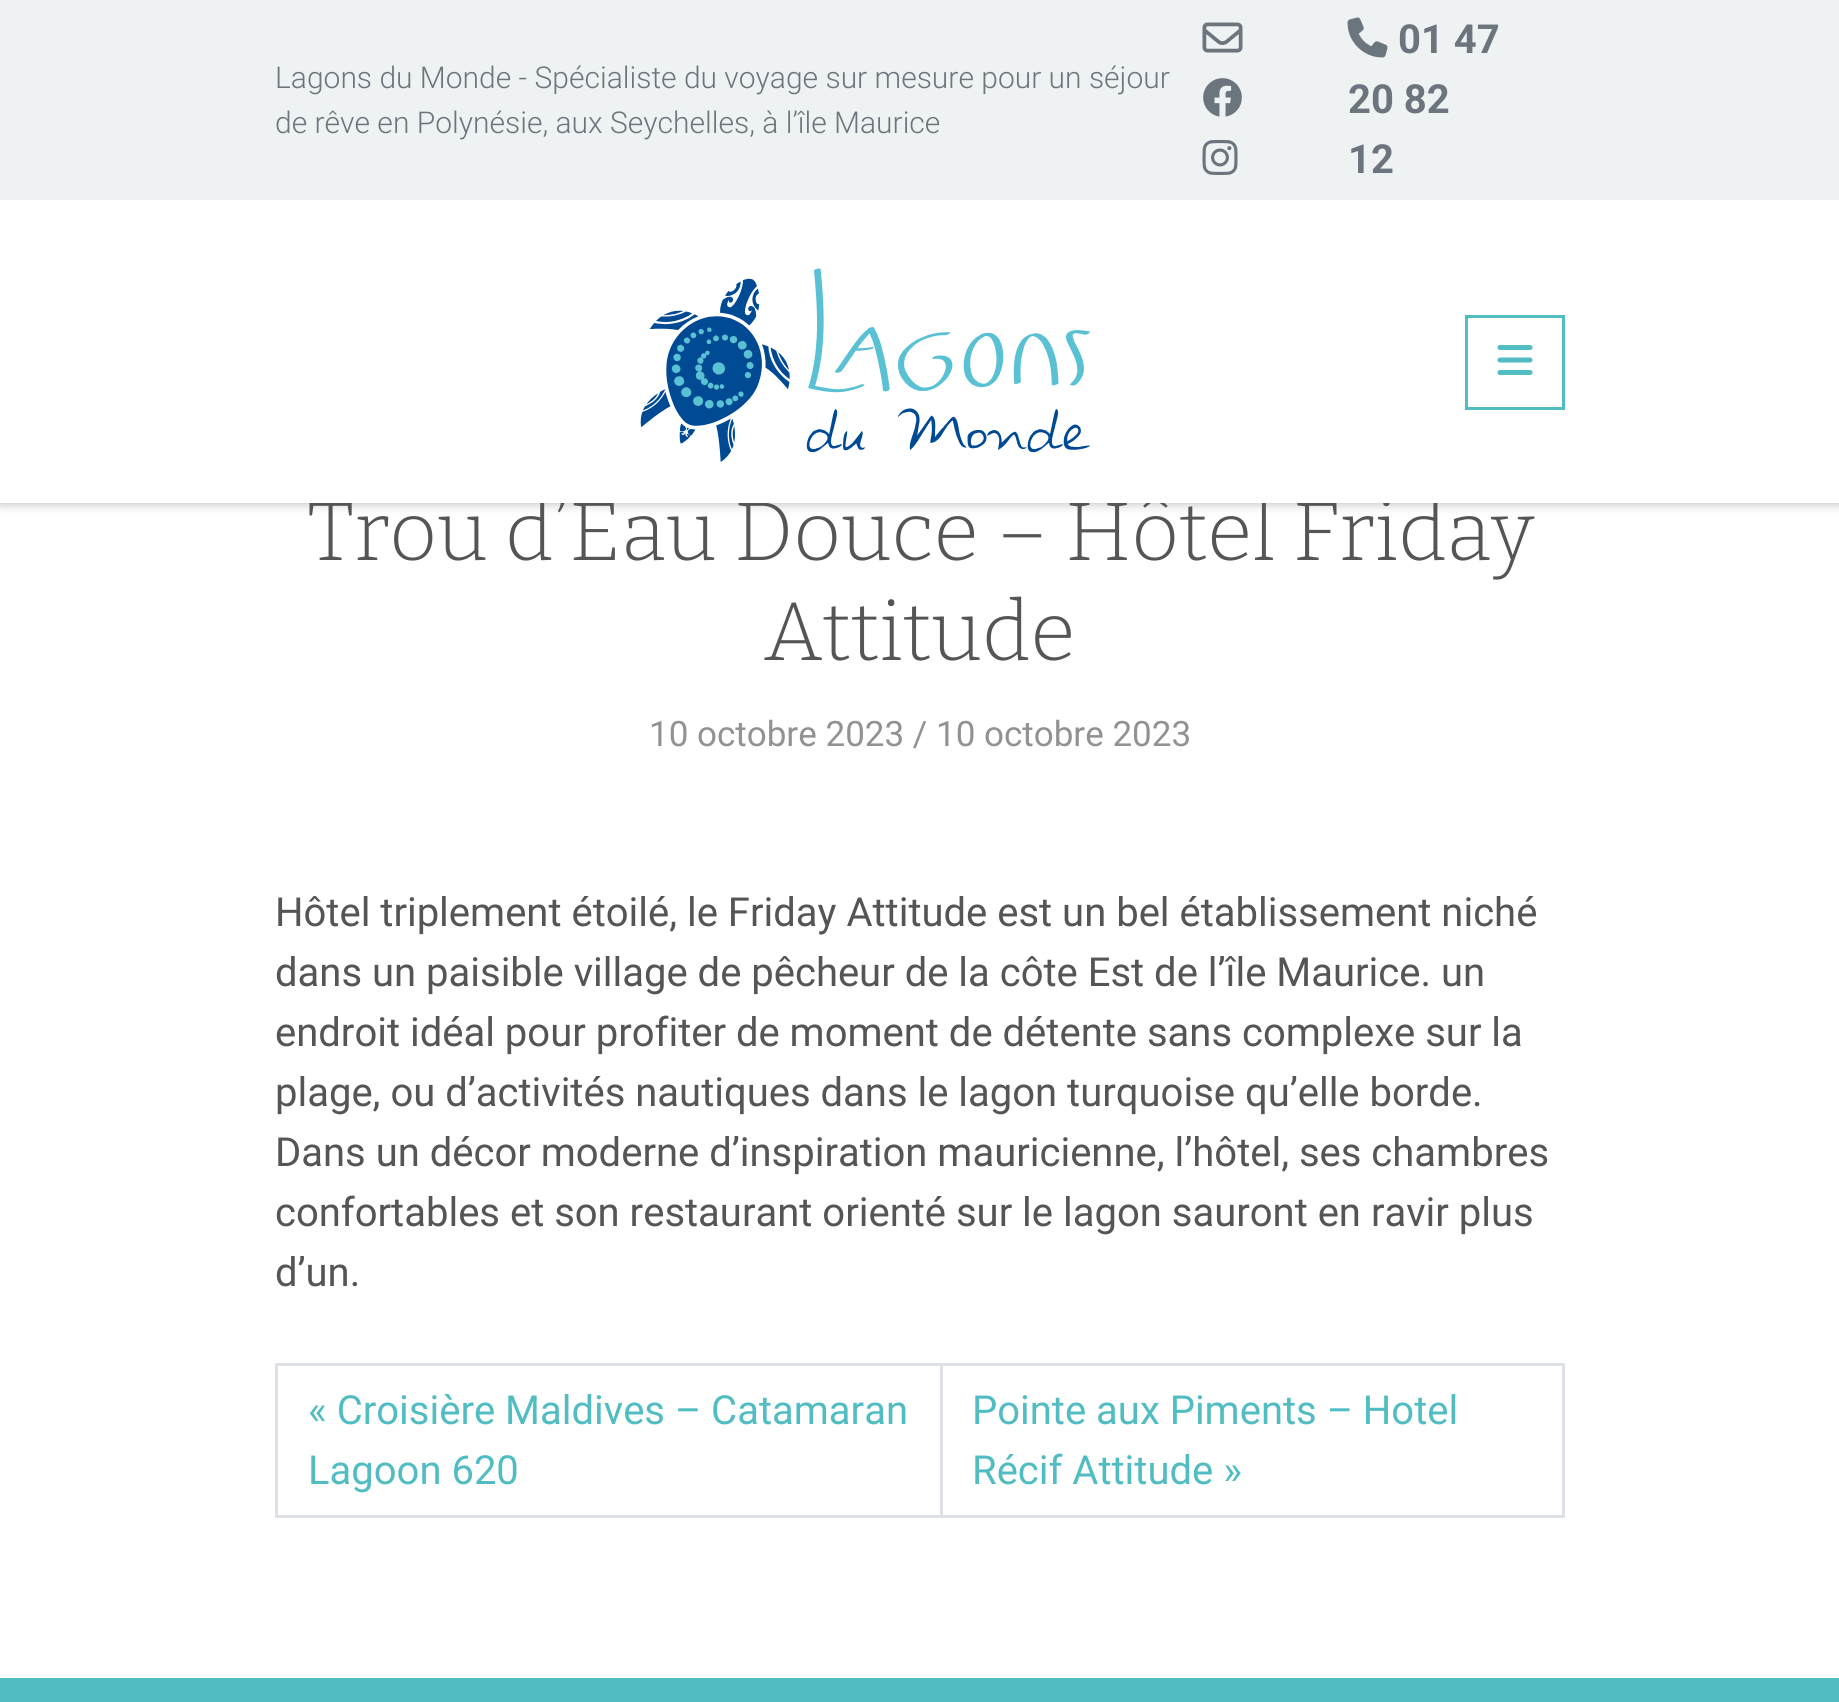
import math
import cairo

surface = cairo.ImageSurface(cairo.FORMAT_RGB24, 1839, 1702)
ctx = cairo.Context(surface)
options = cairo.FontOptions()
options.set_hint_metrics(cairo.HINT_METRICS_OFF)
options.set_hint_style(cairo.HINT_STYLE_NONE)
ctx.set_font_options(options)
ctx.set_miter_limit(4)


def set_color(code):
    ctx.set_source_rgb(*(v / 255 for v in bytes.fromhex(code[-6:])))


def draw_text(x, y, s, family, size, color, bold=False, italic=False):
    ctx.select_font_face(family, cairo.FONT_SLANT_ITALIC if italic else cairo.FONT_SLANT_NORMAL, cairo.FONT_WEIGHT_BOLD if bold else cairo.FONT_WEIGHT_NORMAL)
    ctx.set_font_size(size)
    set_color(color)
    ctx.move_to(x, y)
    ctx.show_text(s)


def fill_rect(x, y, w, h, color):
    set_color(color)
    ctx.rectangle(x, y, w, h)
    ctx.fill()


def rounded_rect(x, y, w, h, r):
    ctx.new_sub_path()
    for i, (u, v) in enumerate([(x + w - r, y + h - r), (x + r, y + h - r), (x + r, y + r), (x + w - r, y + r)]):
        ctx.arc(u, v, r, i * math.pi / 2, (i + 1) * math.pi / 2)
    ctx.close_path()


def draw_shadow(x, y, w, h, r, blur, alpha):
    ctx.push_group_with_content(cairo.CONTENT_ALPHA)
    ctx.set_operator(cairo.OPERATOR_SOURCE)
    for i in range(15, -16, -2):
        e = blur * i / 6
        if min(w, h) + 2 * e > 0:
            ctx.set_source_rgba(0, 0, 0, alpha * math.erfc((i - 1) / 8.5) / 2)
            rounded_rect(x - e, y - e, w + 2 * e, h + 2 * e, max(0, min(r + e + blur * .6, min(w, h) / 2 + e)))
            ctx.fill()
    ctx.mask(ctx.pop_group())


def draw_image(path, x, y, w, h):
    ctx.save()
    ctx.set_source_surface(cairo.ImageSurface.create_from_png(path), x, y)
    ctx.rectangle(x, y, w, h)
    ctx.fill()
    ctx.restore()


set_color("#ffffff")
ctx.paint()
set_color("#000000")
draw_shadow(0, 0, 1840, 503, 0, 6, 0.29)
draw_text(307, 560, "Trou d’Eau Douce – Hôtel Friday", "Bitter Light", 82.6, "#555555")
fill_rect(0, 200, 1839, 303, "#ffffff")
fill_rect(0, 0, 1839, 200, "#eef2f2")
draw_text(275, 88, "Lagons du Monde - Spécialiste du voyage sur mesure pour un séjour", "Roboto Light", 30, "#6c757d")
draw_text(275, 133, "de rêve en Polynésie, aux Seychelles, à l’île Maurice", "Roboto Light", 30, "#6c757d")
draw_image("assets/img1.png", 1202, 22, 41, 31)
draw_image("assets/img2.png", 1203, 78, 39, 39)
draw_image("assets/img3.png", 1202, 140, 36, 35)
draw_image("assets/img4.png", 1347, 17, 41, 41)
draw_text(1398, 53, "01 47", "Roboto", 40, "#6c757d", bold=True)
draw_text(1348, 113, "20 82", "Roboto", 40, "#6c757d", bold=True)
draw_text(1348, 173, "12", "Roboto", 40, "#6c757d", bold=True)
draw_image("assets/img5.png", 640, 268, 450, 194)
ctx.rectangle(1466.5, 316.5, 97, 92)
set_color("#52bcc3")
ctx.set_line_width(3)
ctx.stroke()
draw_image("assets/img6.png", 1497, 345, 36, 30)
draw_text(764, 660, "Attitude", "Bitter Light", 82.6, "#555555")
draw_text(649, 746, "10 octobre 2023 / 10 octobre 2023", "Roboto", 35, "#909294")
draw_text(275, 926, "Hôtel triplement étoilé, le Friday Attitude est un bel établissement niché", "Roboto", 40, "#555555")
draw_text(275, 986, "dans un paisible village de pêcheur de la côte Est de l’île Maurice. un", "Roboto", 40, "#555555")
draw_text(275, 1046, "endroit idéal pour profiter de moment de détente sans complexe sur la", "Roboto", 40, "#555555")
draw_text(275, 1106, "plage, ou d’activités nautiques dans le lagon turquoise qu’elle borde.", "Roboto", 40, "#555555")
draw_text(275, 1166, "Dans un décor moderne d’inspiration mauricienne, l’hôtel, ses chambres", "Roboto", 40, "#555555")
draw_text(275, 1226, "confortables et son restaurant orienté sur le lagon sauront en ravir plus", "Roboto", 40, "#555555")
draw_text(275, 1286, "d’un.", "Roboto", 40, "#555555")
ctx.rectangle(276.5, 1364.5, 665, 152)
set_color("#dee2e6")
ctx.stroke()
draw_text(308, 1424, "« Croisière Maldives – Catamaran", "Roboto", 40, "#52bcc3")
draw_text(308, 1484, "Lagoon 620", "Roboto", 40, "#52bcc3")
ctx.rectangle(941.5, 1364.5, 622, 152)
set_color("#dee2e6")
ctx.stroke()
draw_text(972, 1424, "Pointe aux Piments – Hotel", "Roboto", 40, "#52bcc3")
draw_text(972, 1484, "Récif Attitude »", "Roboto", 40, "#52bcc3")
fill_rect(0, 1678, 1839, 24, "#52bcc3")
surface.write_to_png("output.png")
